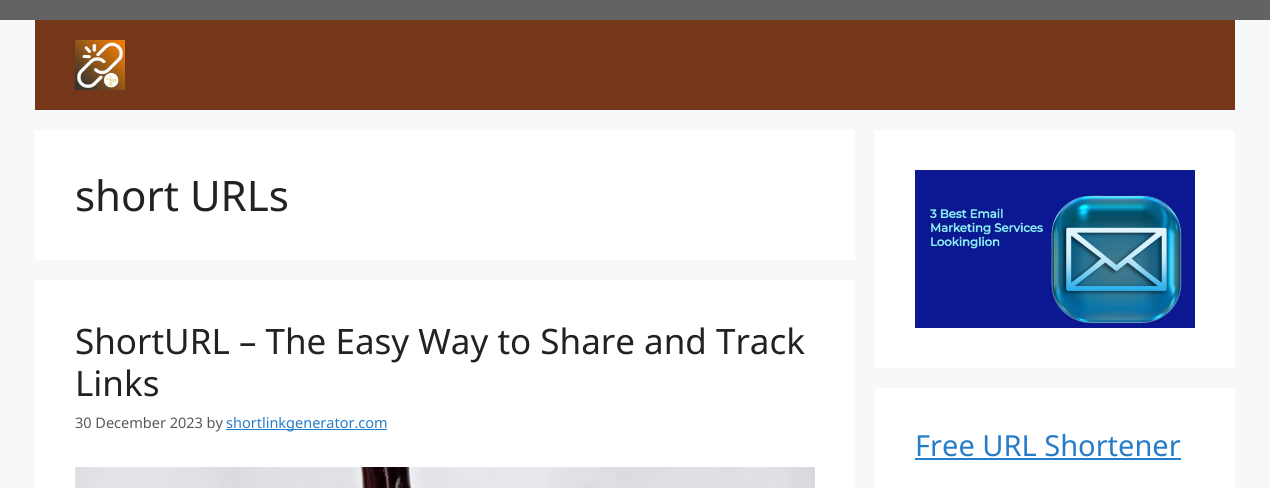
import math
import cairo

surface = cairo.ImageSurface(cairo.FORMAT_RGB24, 1270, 488)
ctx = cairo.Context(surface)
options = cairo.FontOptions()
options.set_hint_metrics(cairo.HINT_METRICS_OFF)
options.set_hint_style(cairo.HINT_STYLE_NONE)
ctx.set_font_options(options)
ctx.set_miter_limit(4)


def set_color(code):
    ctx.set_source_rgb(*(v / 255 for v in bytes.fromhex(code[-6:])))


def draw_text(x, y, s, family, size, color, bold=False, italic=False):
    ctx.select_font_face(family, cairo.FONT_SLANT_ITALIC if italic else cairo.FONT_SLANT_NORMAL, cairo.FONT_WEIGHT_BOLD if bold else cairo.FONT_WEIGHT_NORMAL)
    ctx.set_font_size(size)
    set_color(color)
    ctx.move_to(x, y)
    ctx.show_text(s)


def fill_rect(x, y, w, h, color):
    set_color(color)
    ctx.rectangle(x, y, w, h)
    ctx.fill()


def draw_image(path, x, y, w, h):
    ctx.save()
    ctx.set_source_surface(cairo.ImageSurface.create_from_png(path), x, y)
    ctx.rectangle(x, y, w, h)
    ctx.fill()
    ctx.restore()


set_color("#f7f8f9")
ctx.paint()
fill_rect(0, 0, 1270, 20, "#636363")
fill_rect(35, 20, 1200, 90, "#75371a")
draw_image("assets/img1.png", 75, 40, 50, 50)
fill_rect(35, 130, 820, 130, "#ffffff")
draw_text(75, 211, "short URLs", "Noto Sans", 42, "#222222")
fill_rect(35, 280, 820, 208, "#ffffff")
draw_text(75, 354, "ShortURL – The Easy Way to Share and Track", "Noto Sans", 35, "#222222")
draw_text(75, 396, "Links", "Noto Sans", 35, "#222222")
draw_text(75, 428, "30 December 2023 by", "Noto Sans", 14.5, "#575760")
fill_rect(226, 429, 161, 1, "#257cc8")
draw_text(226, 428, "shortlinkgenerator.com", "Noto Sans", 14.5, "#257cc8")
draw_image("assets/img2.png", 75, 467, 740, 21)
fill_rect(875, 130, 360, 238, "#ffffff")
draw_image("assets/img3.png", 915, 170, 280, 158)
fill_rect(875, 388, 360, 100, "#ffffff")
draw_text(915, 456, "Free URL Shortener", "Noto Sans", 29, "#257cc8")
fill_rect(915, 458, 266, 2, "#257cc8")
surface.write_to_png("output.png")
